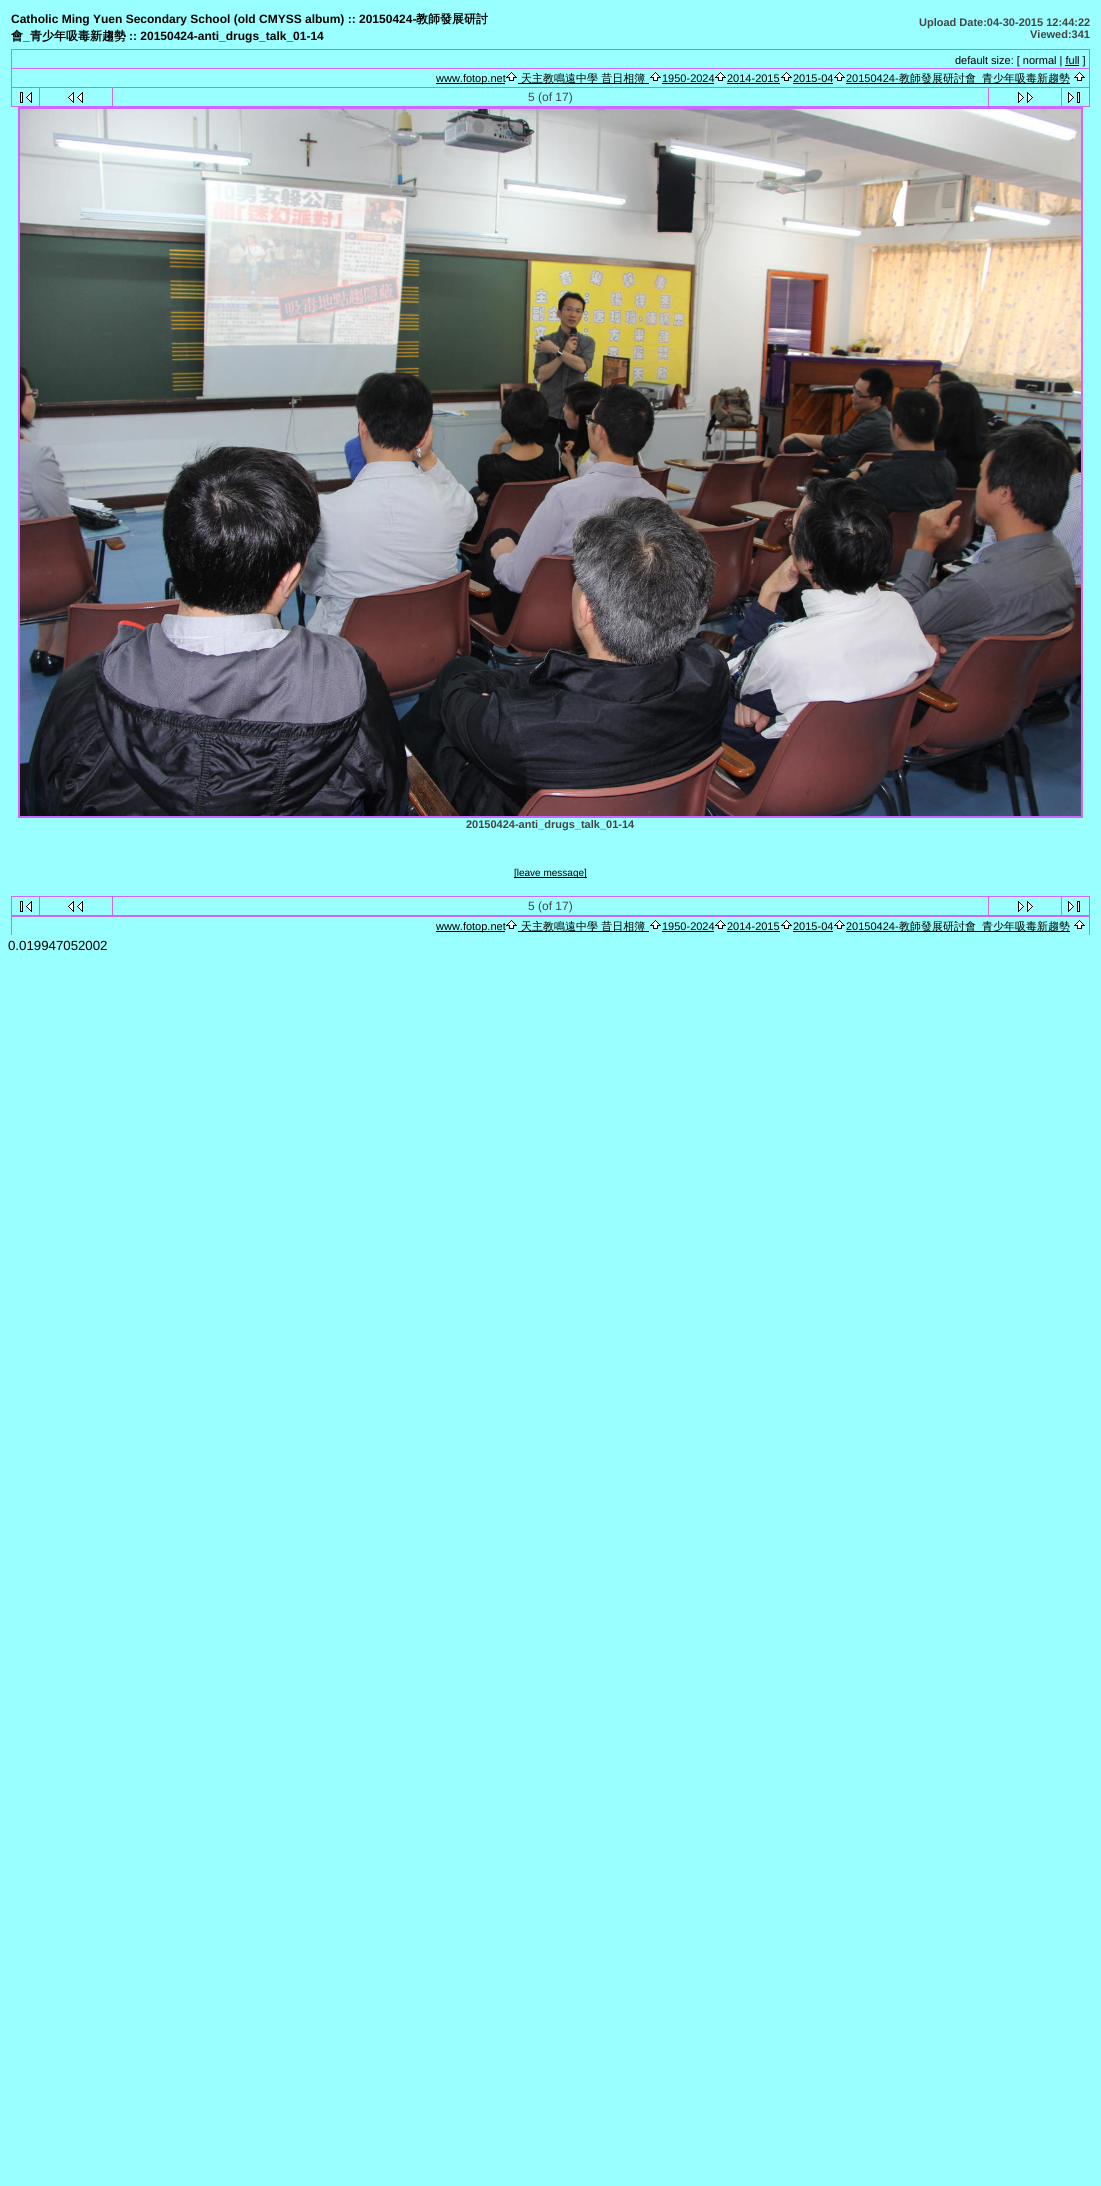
import math
import cairo

surface = cairo.ImageSurface(cairo.FORMAT_RGB24, 1101, 2186)
ctx = cairo.Context(surface)
options = cairo.FontOptions()
options.set_hint_metrics(cairo.HINT_METRICS_OFF)
options.set_hint_style(cairo.HINT_STYLE_NONE)
ctx.set_font_options(options)
ctx.set_miter_limit(4)


def set_color(code):
    ctx.set_source_rgb(*(v / 255 for v in bytes.fromhex(code[-6:])))


def draw_text(x, y, s, family, size, color, bold=False, italic=False):
    ctx.select_font_face(family, cairo.FONT_SLANT_ITALIC if italic else cairo.FONT_SLANT_NORMAL, cairo.FONT_WEIGHT_BOLD if bold else cairo.FONT_WEIGHT_NORMAL)
    ctx.set_font_size(size)
    set_color(color)
    ctx.move_to(x, y)
    ctx.show_text(s)


def fill_rect(x, y, w, h, color):
    set_color(color)
    ctx.rectangle(x, y, w, h)
    ctx.fill()


def draw_image(path, x, y, w, h):
    ctx.save()
    ctx.set_source_surface(cairo.ImageSurface.create_from_png(path), x, y)
    ctx.rectangle(x, y, w, h)
    ctx.fill()
    ctx.restore()


set_color("#99ffff")
ctx.paint()
draw_text(11, 23, "Catholic Ming Yuen Secondary School (old CMYSS album) :: 20150424-", "Liberation Sans", 12, "#000000", bold=True)
draw_text(416, 23, "教師發展研討", "WenQuanYi Zen Hei", 12, "#000000", bold=True)
draw_text(11, 40, "會", "WenQuanYi Zen Hei", 12, "#000000", bold=True)
draw_text(23, 40, "_", "Liberation Sans", 12, "#000000", bold=True)
draw_text(30, 40, "青少年吸毒新趨勢", "WenQuanYi Zen Hei", 12, "#000000", bold=True)
draw_text(129, 40, ":: 20150424-anti_drugs_talk_01-14", "Liberation Sans", 12, "#000000", bold=True)
draw_text(919, 26, "Upload Date:04-30-2015 12:44:22", "Liberation Sans", 11, "#444444", bold=True)
draw_text(1030, 38, "Viewed:341", "Liberation Sans", 11, "#444444", bold=True)
fill_rect(11, 49, 1079, 1, "#cc66ff")
fill_rect(11, 50, 1, 18, "#cc66ff")
draw_text(955, 64, "default size: [ normal | full ]", "Liberation Sans", 11, "#000000")
fill_rect(1065, 65, 14, 1, "#000000")
fill_rect(1089, 50, 1, 18, "#cc66ff")
fill_rect(11, 68, 1079, 1, "#cc66ff")
fill_rect(11, 69, 1, 18, "#cc66ff")
fill_rect(436, 83, 69, 1, "#000000")
draw_text(436, 82, "www.fotop.net", "Liberation Sans", 11, "#000000")
draw_image("assets/img1.png", 506, 72, 11, 9)
fill_rect(518, 83, 131, 1, "#000000")
draw_text(521, 82, "天主教鳴遠中學 昔日相簿", "WenQuanYi Zen Hei Medium", 11, "#000000")
draw_image("assets/img1.png", 650, 72, 11, 9)
draw_text(662, 82, "1950-2024", "Liberation Sans", 11, "#000000")
fill_rect(662, 83, 52, 1, "#000000")
draw_image("assets/img1.png", 715, 72, 11, 9)
draw_text(727, 82, "2014-2015", "Liberation Sans", 11, "#000000")
fill_rect(727, 83, 53, 1, "#000000")
draw_image("assets/img1.png", 781, 72, 11, 9)
draw_text(793, 82, "2015-04", "Liberation Sans", 11, "#000000")
fill_rect(793, 83, 40, 1, "#000000")
draw_image("assets/img1.png", 834, 72, 11, 9)
draw_text(846, 82, "20150424-", "Liberation Sans", 11, "#000000")
fill_rect(846, 83, 224, 1, "#000000")
draw_text(899, 82, "教師發展研討會", "WenQuanYi Zen Hei Medium", 11, "#000000")
draw_text(982, 82, "青少年吸毒新趨勢", "WenQuanYi Zen Hei Medium", 11, "#000000")
draw_image("assets/img1.png", 1074, 72, 11, 9)
fill_rect(1089, 69, 1, 18, "#cc66ff")
fill_rect(11, 87, 1079, 1, "#cc66ff")
fill_rect(11, 88, 1, 18, "#cc66ff")
draw_image("assets/img2.png", 20, 92, 12, 11)
fill_rect(39, 88, 1, 18, "#cc66ff")
draw_image("assets/img3.png", 68, 92, 15, 11)
fill_rect(112, 88, 1, 18, "#cc66ff")
draw_text(528, 101, "5 (of 17)", "Liberation Sans", 12, "#444444")
fill_rect(988, 88, 1, 18, "#cc66ff")
draw_image("assets/img4.png", 1018, 92, 15, 11)
fill_rect(1061, 88, 1, 18, "#cc66ff")
draw_image("assets/img5.png", 1068, 92, 12, 11)
fill_rect(1089, 88, 1, 18, "#cc66ff")
fill_rect(11, 106, 1079, 1, "#cc66ff")
fill_rect(18, 107, 1065, 2, "#cc66ff")
fill_rect(18, 109, 2, 707, "#cc66ff")
draw_image("assets/img6.png", 20, 109, 1061, 707)
fill_rect(1081, 109, 2, 707, "#cc66ff")
fill_rect(18, 816, 1065, 2, "#cc66ff")
draw_text(466, 828, "20150424-anti_drugs_talk_01-14", "Liberation Sans", 11, "#444444", bold=True)
fill_rect(514, 877, 73, 1, "#000000")
draw_text(514, 876, "[leave message]", "Liberation Sans", 10, "#000000")
fill_rect(11, 896, 1079, 1, "#cc66ff")
fill_rect(11, 897, 1, 18, "#cc66ff")
draw_image("assets/img2.png", 20, 901, 12, 11)
fill_rect(39, 897, 1, 18, "#cc66ff")
draw_image("assets/img3.png", 68, 901, 15, 11)
fill_rect(112, 897, 1, 18, "#cc66ff")
draw_text(528, 910, "5 (of 17)", "Liberation Sans", 12, "#444444")
fill_rect(988, 897, 1, 18, "#cc66ff")
draw_image("assets/img4.png", 1018, 901, 15, 11)
fill_rect(1061, 897, 1, 18, "#cc66ff")
draw_image("assets/img5.png", 1068, 901, 12, 11)
fill_rect(1089, 897, 1, 18, "#cc66ff")
fill_rect(11, 915, 1079, 2, "#cc66ff")
fill_rect(11, 917, 1, 18, "#cc66ff")
fill_rect(436, 931, 69, 1, "#000000")
draw_text(436, 930, "www.fotop.net", "Liberation Sans", 11, "#000000")
draw_image("assets/img1.png", 506, 920, 11, 9)
fill_rect(518, 931, 131, 1, "#000000")
draw_text(521, 930, "天主教鳴遠中學 昔日相簿", "WenQuanYi Zen Hei Medium", 11, "#000000")
draw_image("assets/img1.png", 650, 920, 11, 9)
draw_text(662, 930, "1950-2024", "Liberation Sans", 11, "#000000")
fill_rect(662, 931, 52, 1, "#000000")
draw_image("assets/img1.png", 715, 920, 11, 9)
draw_text(727, 930, "2014-2015", "Liberation Sans", 11, "#000000")
fill_rect(727, 931, 53, 1, "#000000")
draw_image("assets/img1.png", 781, 920, 11, 9)
draw_text(793, 930, "2015-04", "Liberation Sans", 11, "#000000")
fill_rect(793, 931, 40, 1, "#000000")
draw_image("assets/img1.png", 834, 920, 11, 9)
draw_text(846, 930, "20150424-", "Liberation Sans", 11, "#000000")
fill_rect(846, 931, 224, 1, "#000000")
draw_text(899, 930, "教師發展研討會", "WenQuanYi Zen Hei Medium", 11, "#000000")
draw_text(982, 930, "青少年吸毒新趨勢", "WenQuanYi Zen Hei Medium", 11, "#000000")
draw_image("assets/img1.png", 1074, 920, 11, 9)
fill_rect(1089, 917, 1, 18, "#cc66ff")
draw_text(8, 950, "0.019947052002", "Liberation Sans", 13.25, "#000000")
surface.write_to_png("output.png")
